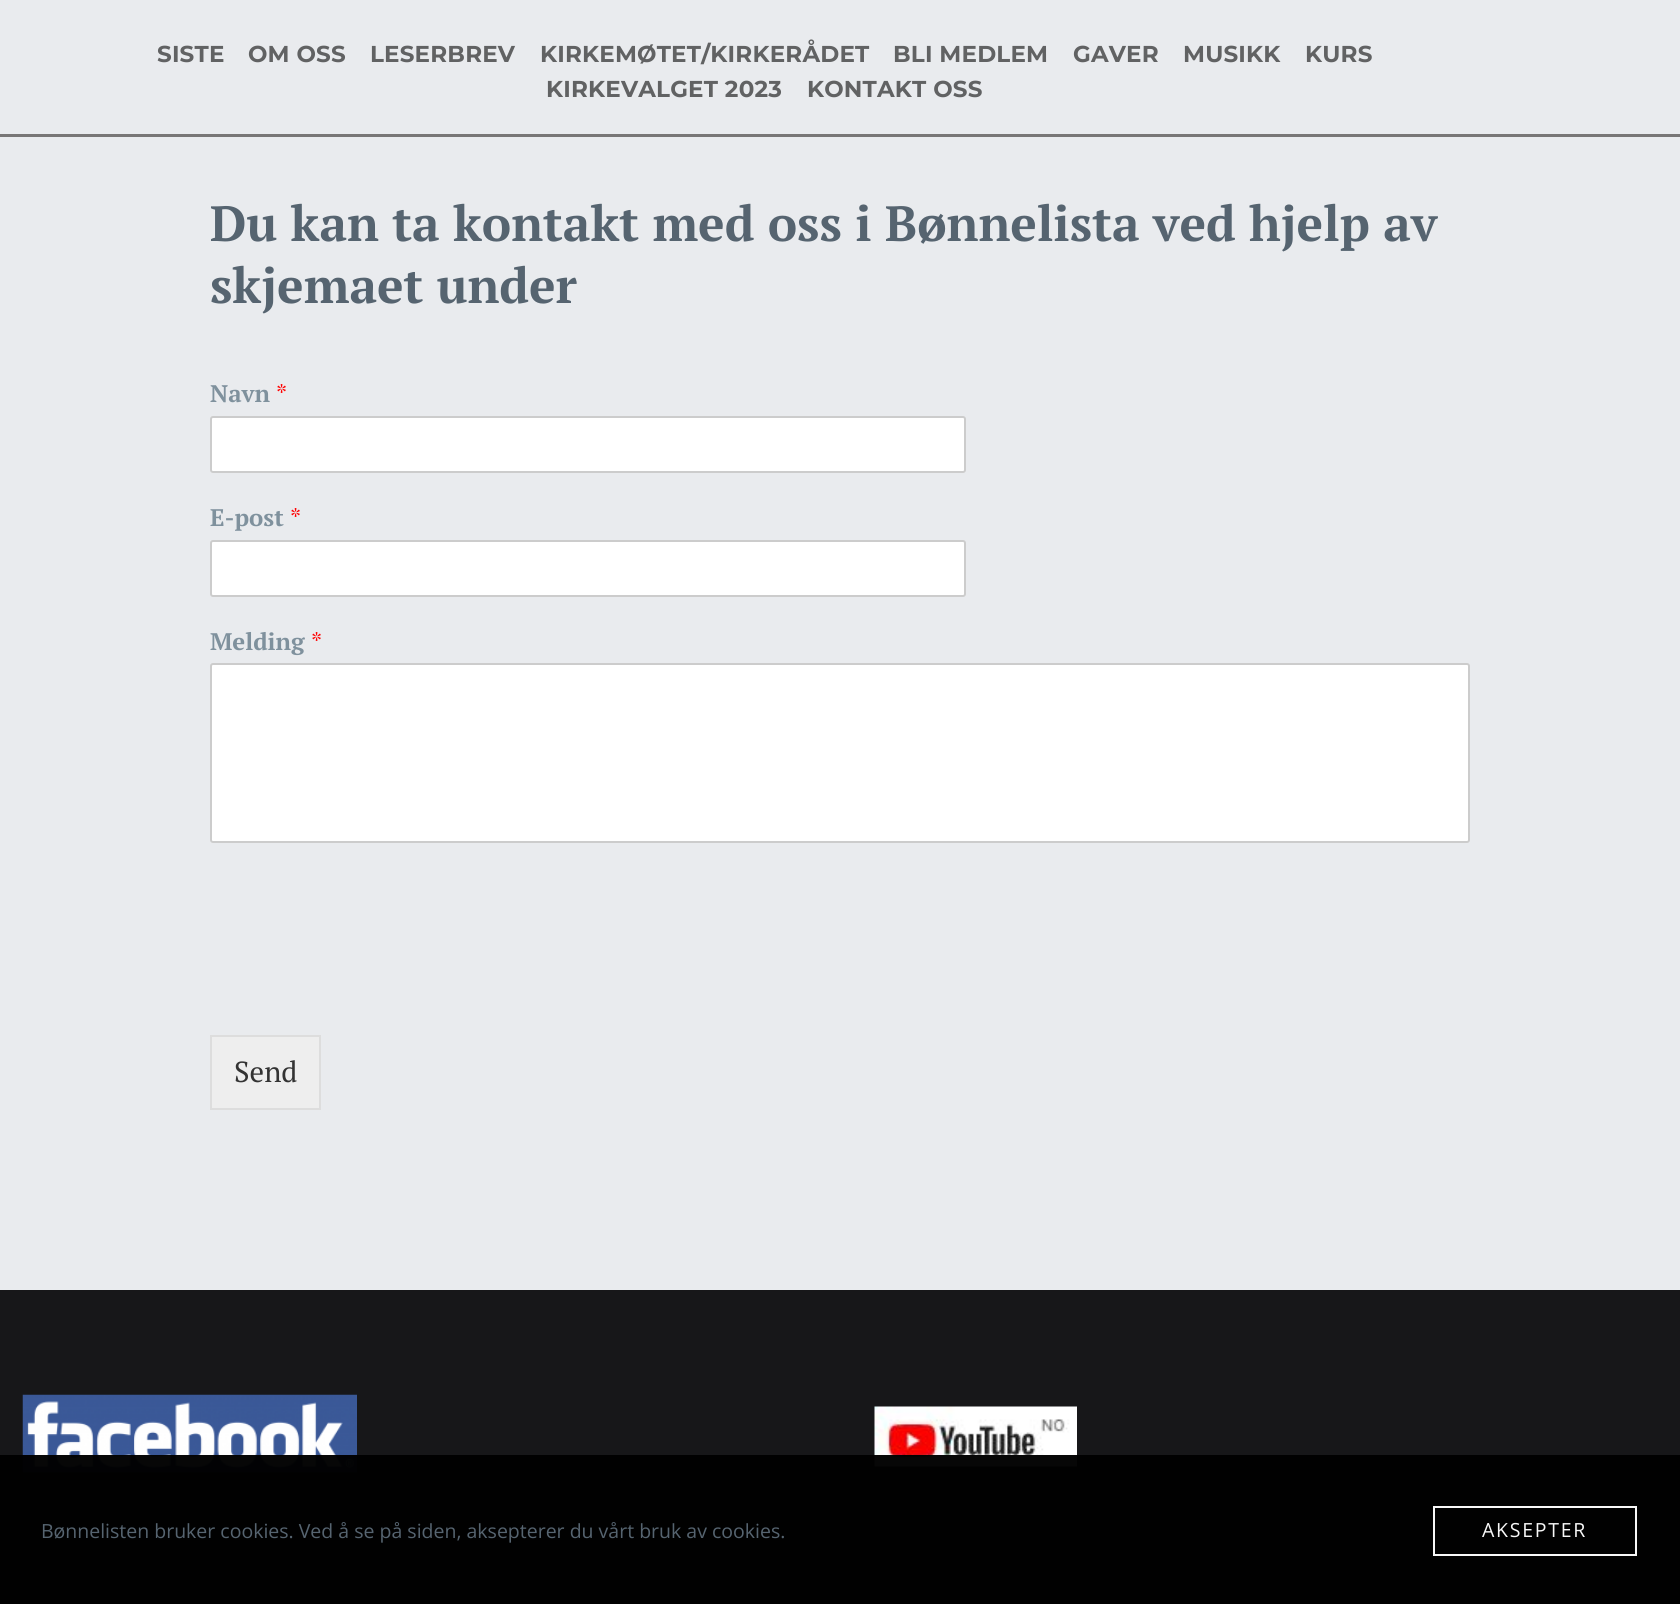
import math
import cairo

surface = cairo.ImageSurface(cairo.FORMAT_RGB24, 1680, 1604)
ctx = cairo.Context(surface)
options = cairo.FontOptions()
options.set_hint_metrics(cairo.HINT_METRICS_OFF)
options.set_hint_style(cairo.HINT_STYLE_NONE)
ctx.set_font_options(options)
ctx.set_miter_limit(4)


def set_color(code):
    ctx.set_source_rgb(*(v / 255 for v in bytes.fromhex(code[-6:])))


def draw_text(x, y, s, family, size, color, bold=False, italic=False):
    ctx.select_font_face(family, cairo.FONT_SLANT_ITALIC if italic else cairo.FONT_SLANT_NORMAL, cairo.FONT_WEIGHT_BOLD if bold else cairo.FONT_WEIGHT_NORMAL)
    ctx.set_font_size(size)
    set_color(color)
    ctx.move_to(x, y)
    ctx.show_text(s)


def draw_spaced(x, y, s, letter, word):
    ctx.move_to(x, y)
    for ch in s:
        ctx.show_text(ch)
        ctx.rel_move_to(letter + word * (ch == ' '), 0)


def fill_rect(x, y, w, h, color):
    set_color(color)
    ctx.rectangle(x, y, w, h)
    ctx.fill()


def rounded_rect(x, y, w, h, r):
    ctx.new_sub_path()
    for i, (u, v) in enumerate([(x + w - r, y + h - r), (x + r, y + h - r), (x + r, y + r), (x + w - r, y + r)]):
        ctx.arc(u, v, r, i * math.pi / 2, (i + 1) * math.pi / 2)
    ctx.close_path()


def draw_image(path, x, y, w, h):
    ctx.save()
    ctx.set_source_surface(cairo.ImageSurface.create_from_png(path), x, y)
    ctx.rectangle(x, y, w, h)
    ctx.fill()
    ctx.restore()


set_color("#e9ebee")
ctx.paint()
fill_rect(0, 134, 1680, 3, "#787676")
ctx.select_font_face("Montserrat", cairo.FONT_SLANT_NORMAL, cairo.FONT_WEIGHT_BOLD)
ctx.set_font_size(23)
set_color("#616263")
draw_spaced(157, 62, "SISTE", 0.2, 0)
draw_spaced(248, 62, "OM OSS", 0.2, 0)
draw_spaced(370, 62, "LESERBREV", 0.2, 0)
draw_spaced(540, 62, "KIRKEMØTET/KIRKERÅDET", 0.2, 0)
draw_spaced(893, 62, "BLI MEDLEM", 0.2, 0)
draw_spaced(1073, 62, "GAVER", 0.2, 0)
draw_spaced(1183, 62, "MUSIKK", 0.2, 0)
draw_spaced(1305, 62, "KURS", 0.2, 0)
draw_spaced(546, 97, "KIRKEVALGET 2023", 0.2, 0)
draw_spaced(807, 97, "KONTAKT OSS", 0.2, 0)
draw_text(210, 241, "Du kan ta kontakt med oss i Bønnelista ved hjelp av", "PT Serif", 49.5, "#566470", bold=True)
draw_text(210, 303, "skjemaet under", "PT Serif", 49.5, "#566470", bold=True)
draw_text(210, 402, "Navn", "PT Serif", 24, "#7f919d", bold=True)
draw_text(276, 402, "*", "PT Serif", 24, "#ff0000")
set_color("#ffffff")
rounded_rect(211, 417, 754, 55, 2)
ctx.fill_preserve()
set_color("#cccccc")
ctx.stroke()
draw_text(210, 526, "E-post", "PT Serif", 24, "#7f919d", bold=True)
draw_text(290, 526, "*", "PT Serif", 24, "#ff0000")
set_color("#ffffff")
rounded_rect(211, 541, 754, 55, 2)
ctx.fill_preserve()
set_color("#cccccc")
ctx.stroke()
draw_text(210, 650, "Melding", "PT Serif", 24, "#7f919d", bold=True)
draw_text(311, 650, "*", "PT Serif", 24, "#ff0000")
set_color("#ffffff")
rounded_rect(211, 664, 1258, 178, 2)
ctx.fill_preserve()
set_color("#cccccc")
ctx.stroke()
set_color("#eeeeee")
ctx.rectangle(211, 1036, 109, 73)
ctx.fill_preserve()
set_color("#dddddd")
ctx.stroke()
draw_text(234, 1082, "Send", "PT Serif", 29, "#333333")
fill_rect(0, 1290, 1680, 314, "#171719")
draw_image("assets/img1.png", 22, 1394, 335, 79)
draw_image("assets/img2.png", 874, 1406, 203, 61)
ctx.set_source_rgba(0, 0, 0, 0.97)
ctx.rectangle(0, 1455, 1680, 149)
ctx.fill()
draw_text(41, 1538, "Bønnelisten bruker cookies. Ved å se på siden, aksepterer du vårt bruk av cookies.", "Open Sans", 19.5, "#566470")
ctx.rectangle(1434, 1507, 202, 48)
set_color("#f8f8f8")
ctx.stroke()
draw_spaced(1482, 1537, "AKSEPTER", 1.75, 0)
surface.write_to_png("output.png")
